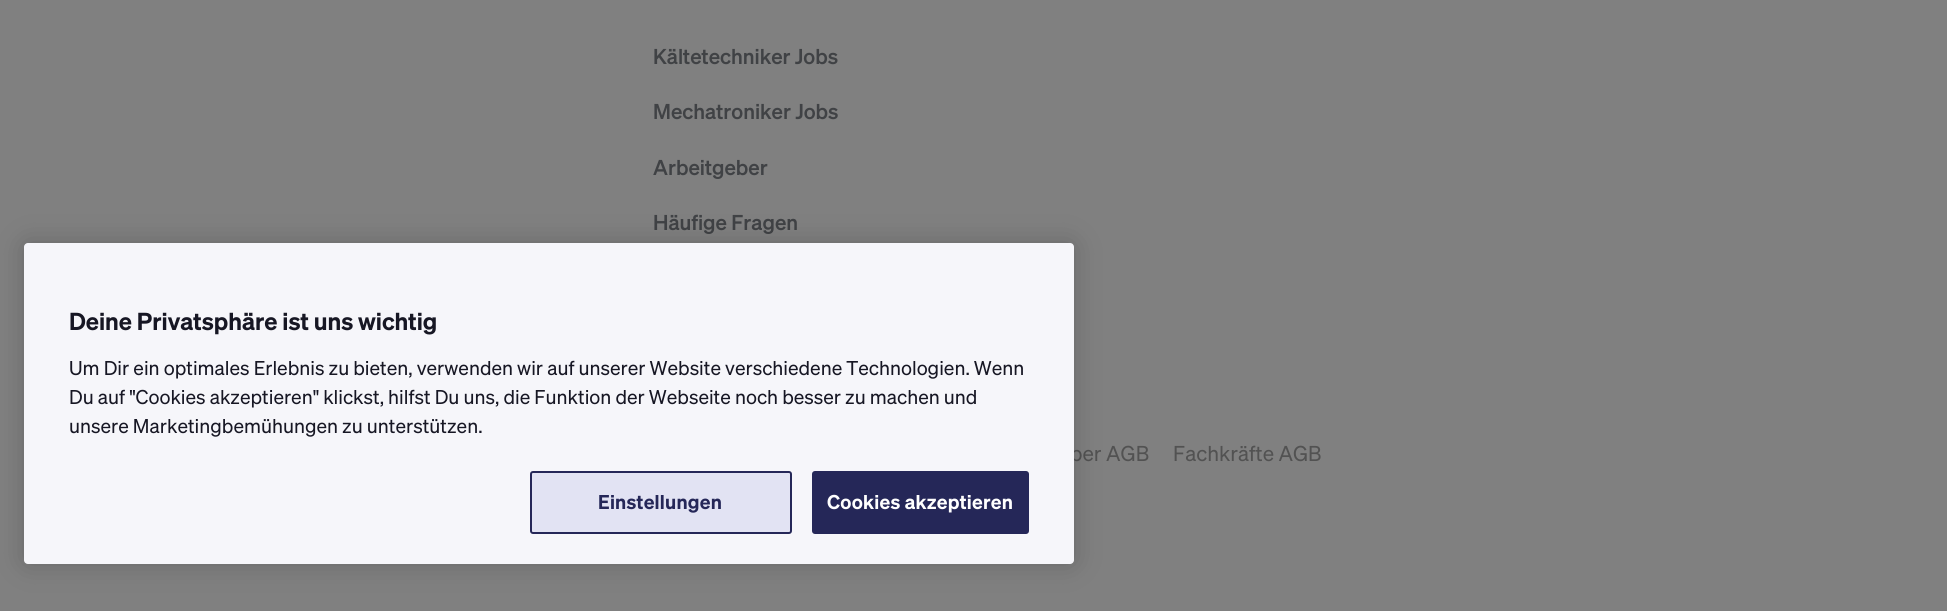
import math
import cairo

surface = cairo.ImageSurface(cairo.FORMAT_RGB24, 1947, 611)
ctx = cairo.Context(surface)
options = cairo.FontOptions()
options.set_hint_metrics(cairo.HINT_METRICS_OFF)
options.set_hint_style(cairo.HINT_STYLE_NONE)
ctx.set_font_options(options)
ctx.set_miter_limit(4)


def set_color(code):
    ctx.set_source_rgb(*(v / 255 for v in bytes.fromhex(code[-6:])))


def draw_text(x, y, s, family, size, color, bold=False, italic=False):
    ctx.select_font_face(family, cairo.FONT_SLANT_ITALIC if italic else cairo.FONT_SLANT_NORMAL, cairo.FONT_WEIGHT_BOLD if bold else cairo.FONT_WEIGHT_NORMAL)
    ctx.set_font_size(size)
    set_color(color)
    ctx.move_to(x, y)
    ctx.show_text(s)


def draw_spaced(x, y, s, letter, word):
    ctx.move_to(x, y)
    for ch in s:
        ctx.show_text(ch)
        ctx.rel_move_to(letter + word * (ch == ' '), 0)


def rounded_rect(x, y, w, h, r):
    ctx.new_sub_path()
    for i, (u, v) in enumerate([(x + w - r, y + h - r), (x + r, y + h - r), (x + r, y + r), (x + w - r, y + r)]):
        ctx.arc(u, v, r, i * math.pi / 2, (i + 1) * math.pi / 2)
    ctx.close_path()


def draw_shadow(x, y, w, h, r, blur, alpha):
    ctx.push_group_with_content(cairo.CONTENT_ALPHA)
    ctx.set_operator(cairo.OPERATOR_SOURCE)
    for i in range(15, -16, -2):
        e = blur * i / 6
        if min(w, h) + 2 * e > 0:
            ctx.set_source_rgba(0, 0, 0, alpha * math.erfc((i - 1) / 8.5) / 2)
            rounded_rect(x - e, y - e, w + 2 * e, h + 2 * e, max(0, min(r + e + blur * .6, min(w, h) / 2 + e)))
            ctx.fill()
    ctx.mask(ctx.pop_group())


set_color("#808080")
ctx.paint()
draw_text(653, 64, "Kältetechniker Jobs", "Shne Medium", 21, "#404245")
draw_text(653, 119, "Mechatroniker Jobs", "Shne Medium", 21, "#404245")
draw_text(653, 175, "Arbeitgeber", "Shne Medium", 21, "#404245")
draw_text(653, 230, "Häufige Fragen", "Shne Medium", 21, "#404245")
draw_text(1070, 461, "ber AGB", "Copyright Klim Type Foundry", 21, "#525252")
draw_text(1173, 461, "Fachkräfte AGB", "Copyright Klim Type Foundry", 21, "#525252")
set_color("#000000")
draw_shadow(24, 243, 1050, 321, 4, 13.5, 0.2)
set_color("#f6f6fa")
rounded_rect(24, 243, 1050, 321, 4)
ctx.fill()
draw_text(69, 330, "Deine Privatsphäre ist uns wichtig", "Shne SemiBold", 24, "#171724")
draw_text(69, 375, "Um Dir ein optimales Erlebnis zu bieten, verwenden wir auf unserer Website verschiedene Technologien. Wenn", "Copyright Klim Type Foundry", 19.5, "#171724")
draw_text(69, 404, "Du auf \"Cookies akzeptieren\" klickst, hilfst Du uns, die Funktion der Webseite noch besser zu machen und", "Copyright Klim Type Foundry", 19.5, "#171724")
draw_text(69, 433, "unsere Marketingbemühungen zu unterstützen.", "Copyright Klim Type Foundry", 19.5, "#171724")
set_color("#e2e3f3")
rounded_rect(531, 472, 260, 61, 2)
ctx.fill_preserve()
set_color("#252758")
ctx.stroke()
ctx.select_font_face("Shne SemiBold")
draw_spaced(598, 509, "Einstellungen", 0.25, 0)
rounded_rect(813, 472, 215, 61, 2)
ctx.fill_preserve()
ctx.stroke()
set_color("#ffffff")
draw_spaced(827, 509, "Cookies akzeptieren", 0.25, 0)
surface.write_to_png("output.png")
